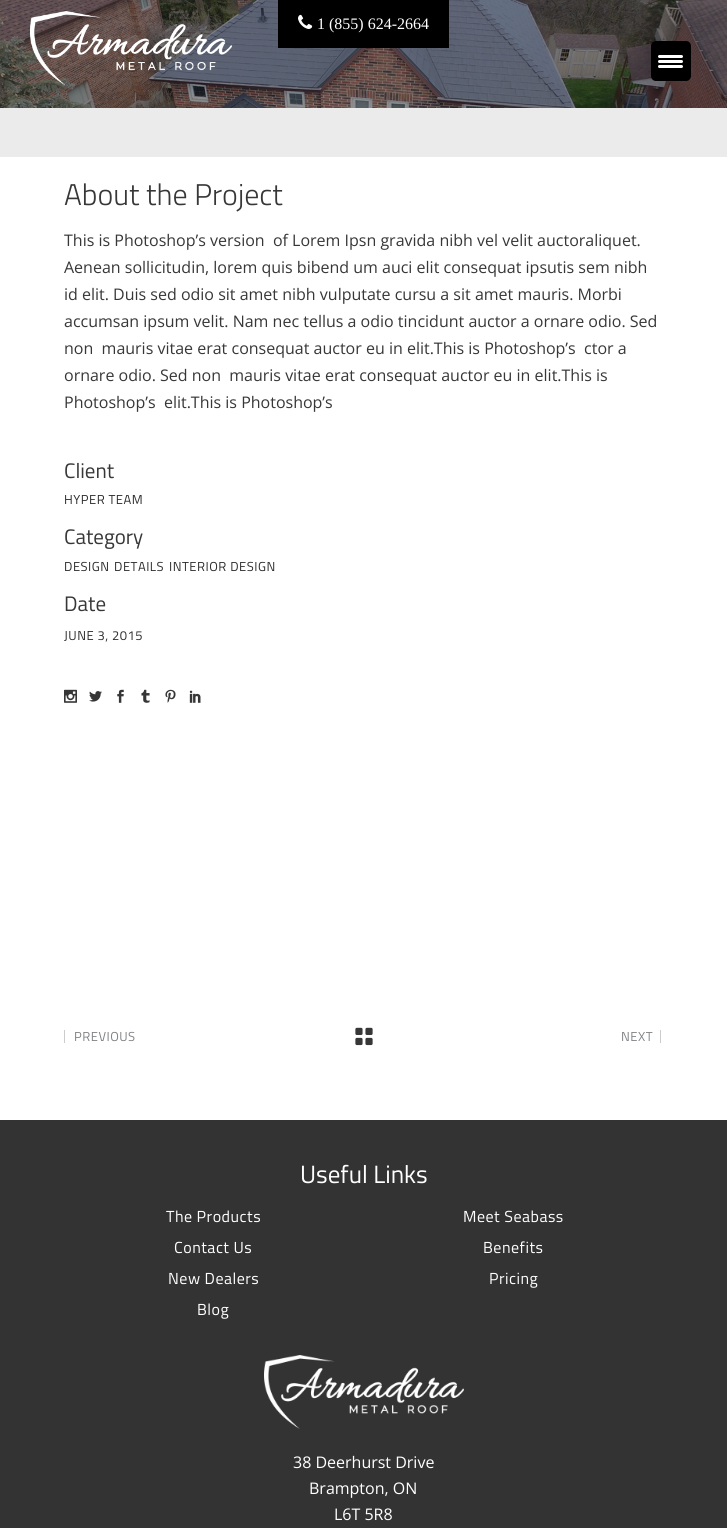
import math
import cairo

surface = cairo.ImageSurface(cairo.FORMAT_RGB24, 727, 1528)
ctx = cairo.Context(surface)
options = cairo.FontOptions()
options.set_hint_metrics(cairo.HINT_METRICS_OFF)
options.set_hint_style(cairo.HINT_STYLE_NONE)
ctx.set_font_options(options)
ctx.set_miter_limit(4)


def set_color(code):
    ctx.set_source_rgb(*(v / 255 for v in bytes.fromhex(code[-6:])))


def draw_text(x, y, s, family, size, color, bold=False, italic=False):
    ctx.select_font_face(family, cairo.FONT_SLANT_ITALIC if italic else cairo.FONT_SLANT_NORMAL, cairo.FONT_WEIGHT_BOLD if bold else cairo.FONT_WEIGHT_NORMAL)
    ctx.set_font_size(size)
    set_color(color)
    ctx.move_to(x, y)
    ctx.show_text(s)


def draw_spaced(x, y, s, letter, word):
    ctx.move_to(x, y)
    for ch in s:
        ctx.show_text(ch)
        ctx.rel_move_to(letter + word * (ch == ' '), 0)


def fill_rect(x, y, w, h, color):
    set_color(color)
    ctx.rectangle(x, y, w, h)
    ctx.fill()


def rounded_rect(x, y, w, h, r):
    ctx.new_sub_path()
    for i, (u, v) in enumerate([(x + w - r, y + h - r), (x + r, y + h - r), (x + r, y + r), (x + w - r, y + r)]):
        ctx.arc(u, v, r, i * math.pi / 2, (i + 1) * math.pi / 2)
    ctx.close_path()


def draw_image(path, x, y, w, h):
    ctx.save()
    ctx.set_source_surface(cairo.ImageSurface.create_from_png(path), x, y)
    ctx.rectangle(x, y, w, h)
    ctx.fill()
    ctx.restore()


set_color("#ffffff")
ctx.paint()
fill_rect(0, 108, 727, 49, "#ebebeb")
draw_image("assets/img3.png", 0, 0, 727, 108)
draw_image("assets/img1.png", 30, 11, 202, 75)
fill_rect(278, 0, 171, 48, "#000000")
draw_image("assets/img2.png", 298, 14, 15, 15)
draw_text(317, 29, "1 (855) 624-2664", "Liberation Serif", 16, "#ffffff")
draw_text(64, 205, "About the Project", "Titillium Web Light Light", 30, "#373737")
draw_text(64, 246, "This is Photoshop’s version  of Lorem Ipsn gravida nibh vel velit auctoraliquet.", "Open Sans", 16, "#373737")
draw_text(64, 273, "Aenean sollicitudin, lorem quis bibend um auci elit consequat ipsutis sem nibh", "Open Sans", 16, "#373737")
draw_text(64, 300, "id elit. Duis sed odio sit amet nibh vulputate cursu a sit amet mauris. Morbi", "Open Sans", 16, "#373737")
draw_text(64, 327, "accumsan ipsum velit. Nam nec tellus a odio tincidunt auctor a ornare odio. Sed", "Open Sans", 16, "#373737")
draw_text(64, 354, "non  mauris vitae erat consequat auctor eu in elit.This is Photoshop’s  ctor a", "Open Sans", 16, "#373737")
draw_text(64, 381, "ornare odio. Sed non  mauris vitae erat consequat auctor eu in elit.This is", "Open Sans", 16, "#373737")
draw_text(64, 408, "Photoshop’s  elit.This is Photoshop’s", "Open Sans", 16, "#373737")
draw_text(64, 478, "Client", "Titillium Web", 21, "#373737")
ctx.set_font_size(13)
set_color("#2d2d2d")
draw_spaced(64, 504, "HYPER TEAM", 0.5, 0)
draw_text(64, 544, "Category", "Titillium Web", 21, "#373737")
ctx.set_font_size(13)
set_color("#2d2d2d")
draw_spaced(64, 571, "DESIGN", 0.5, 0)
draw_spaced(114, 571, "DETAILS", 0.5, 0)
draw_spaced(169, 571, "INTERIOR DESIGN", 0.5, 0)
draw_text(64, 611, "Date", "Titillium Web", 21, "#373737")
ctx.set_font_size(13)
set_color("#2d2d2d")
draw_spaced(64, 640, "JUNE 3, 2015", 0.5, 0)
draw_image("assets/img4.png", 64, 689, 13, 14)
draw_image("assets/img5.png", 89, 691, 13, 11)
draw_image("assets/img6.png", 117, 689, 7, 14)
draw_image("assets/img7.png", 141, 689, 9, 14)
draw_image("assets/img8.png", 165, 689, 11, 14)
draw_image("assets/img9.png", 189, 690, 12, 13)
fill_rect(64, 1030, 1, 13, "#cbcccd")
set_color("#808285")
draw_spaced(74, 1041, "PREVIOUS", 0.5, 0)
draw_image("assets/img10.png", 355, 1027, 18, 19)
draw_spaced(621, 1041, "NEXT", 0.5, 0)
fill_rect(660, 1030, 1, 13, "#cbcccd")
fill_rect(0, 1120, 727, 408, "#333333")
draw_text(300, 1183, "Useful Links", "Titillium Web", 25, "#ffffff")
ctx.set_font_size(16)
draw_spaced(166, 1222, "The Products", 0.5, 0)
draw_spaced(463, 1222, "Meet Seabass", 0.5, 0)
draw_spaced(174, 1253, "Contact Us", 0.5, 0)
draw_spaced(483, 1253, "Benefits", 0.5, 0)
draw_spaced(168, 1284, "New Dealers", 0.5, 0)
draw_spaced(489, 1284, "Pricing", 0.5, 0)
draw_spaced(197, 1315, "Blog", 0.5, 0)
draw_image("assets/img11.png", 264, 1355, 200, 74)
draw_text(293, 1468, "38 Deerhurst Drive", "Open Sans", 16, "#ffffff")
draw_text(309, 1494, "Brampton, ON", "Open Sans", 16, "#ffffff")
draw_text(334, 1520, "L6T 5R8", "Open Sans", 16, "#ffffff")
set_color("#000000")
rounded_rect(651, 41, 40, 40, 5)
ctx.fill()
set_color("#ffffff")
rounded_rect(658, 60, 25, 3, 1.5)
ctx.fill()
rounded_rect(658, 55, 25, 3, 1.5)
ctx.fill()
rounded_rect(658, 65, 25, 3, 1.5)
ctx.fill()
surface.write_to_png("output.png")
